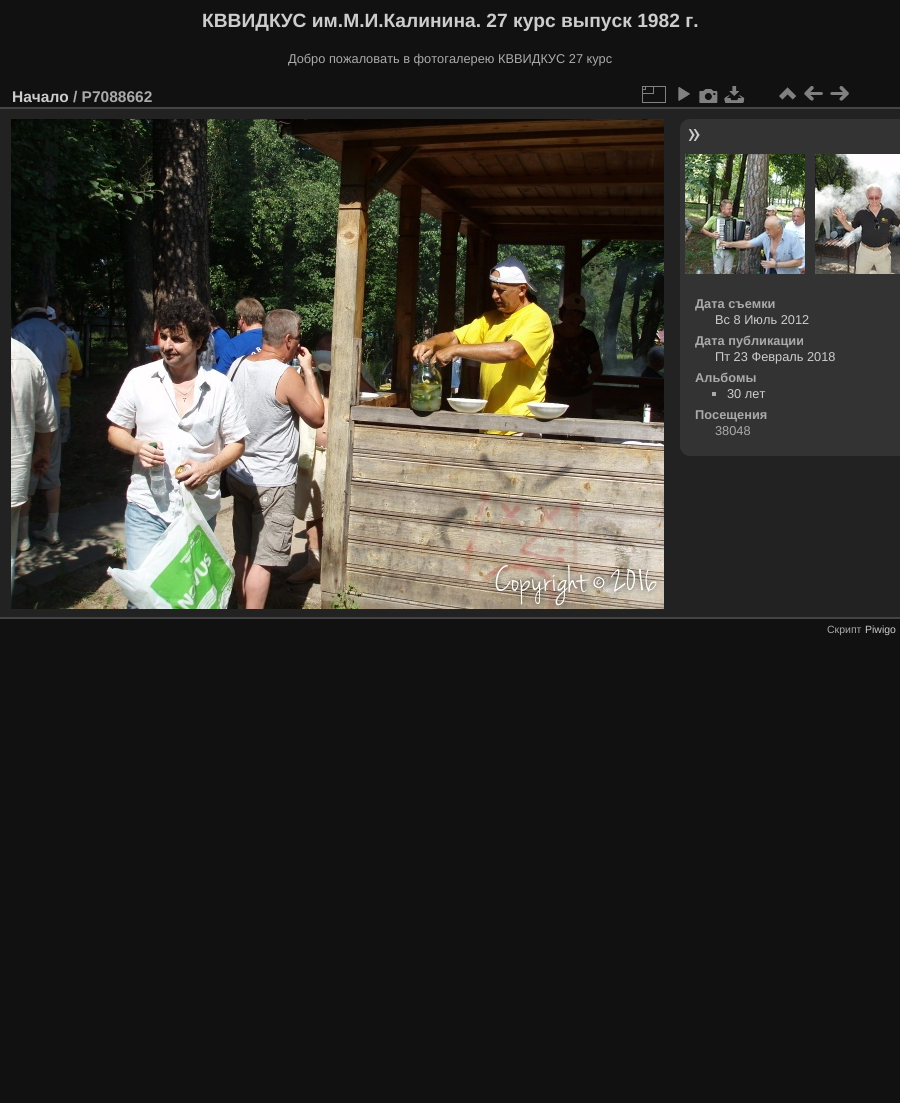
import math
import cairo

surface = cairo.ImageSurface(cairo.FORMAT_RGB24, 900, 1103)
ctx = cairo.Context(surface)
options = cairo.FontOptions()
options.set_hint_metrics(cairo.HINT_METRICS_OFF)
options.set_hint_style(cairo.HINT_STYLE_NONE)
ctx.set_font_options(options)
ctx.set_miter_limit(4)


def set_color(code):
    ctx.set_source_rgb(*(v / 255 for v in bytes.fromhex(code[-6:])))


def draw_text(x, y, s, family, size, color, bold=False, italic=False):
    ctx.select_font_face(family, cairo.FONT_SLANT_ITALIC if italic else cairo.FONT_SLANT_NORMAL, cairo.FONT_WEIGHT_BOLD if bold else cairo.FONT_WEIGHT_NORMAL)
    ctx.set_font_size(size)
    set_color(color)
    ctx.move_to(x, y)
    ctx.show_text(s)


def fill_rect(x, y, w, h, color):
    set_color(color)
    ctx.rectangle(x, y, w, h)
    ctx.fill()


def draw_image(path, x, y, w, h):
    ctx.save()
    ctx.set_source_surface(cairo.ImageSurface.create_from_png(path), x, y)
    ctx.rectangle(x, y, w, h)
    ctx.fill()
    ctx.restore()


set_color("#111111")
ctx.paint()
draw_text(202, 27, "КВВИДКУС им.М.И.Калинина. 27 курс выпуск 1982 г.", "Liberation Sans", 19.2, "#cccccc", bold=True)
draw_text(288, 63, "Добро пожаловать в фотогалерею КВВИДКУС 27 курс", "Liberation Sans", 12.8, "#aaaaaa")
fill_rect(0, 109, 900, 508, "#222222")
fill_rect(0, 617, 900, 2, "#444444")
fill_rect(0, 107, 900, 2, "#444444")
draw_text(12, 102, "Начало", "Liberation Sans", 15.5, "#cccccc", bold=True)
draw_text(73, 102, "/ P7088662", "Liberation Sans", 15.5, "#aaaaaa", bold=True)
draw_image("assets/img1.png", 642, 86, 24, 17)
draw_image("assets/img2.png", 678, 87, 12, 14)
draw_image("assets/img3.png", 699, 89, 19, 14)
draw_image("assets/img4.png", 724, 86, 21, 17)
draw_image("assets/img5.png", 779, 87, 17, 13)
draw_image("assets/img6.png", 804, 86, 19, 15)
draw_image("assets/img7.png", 830, 86, 19, 15)
draw_image("assets/img8.png", 11, 119, 653, 490)
set_color("#333333")
ctx.new_path()
ctx.move_to(690, 119)
ctx.line_to(900, 119)
ctx.line_to(900, 456)
ctx.line_to(690, 456)
ctx.curve_to(684.5, 456, 680, 451.5, 680, 446)
ctx.line_to(680, 129)
ctx.curve_to(680, 123.5, 684.5, 119, 690, 119)
ctx.close_path()
ctx.fill()
draw_image("assets/img9.png", 688, 129, 12, 12)
draw_image("assets/img10.png", 685, 154, 120, 120)
draw_image("assets/img11.png", 815, 154, 85, 120)
draw_text(695, 308, "Дата съемки", "Liberation Sans", 12.8, "#aaaaaa", bold=True)
draw_text(715, 324, "Вс 8 Июль 2012", "Liberation Sans", 12.8, "#cccccc")
draw_text(695, 345, "Дата публикации", "Liberation Sans", 12.8, "#aaaaaa", bold=True)
draw_text(715, 361, "Пт 23 Февраль 2018", "Liberation Sans", 12.8, "#cccccc")
draw_text(695, 382, "Альбомы", "Liberation Sans", 12.8, "#aaaaaa", bold=True)
fill_rect(712, 392, 4, 4, "#aaaaaa")
draw_text(727, 398, "30 лет", "Liberation Sans", 12.8, "#cccccc")
draw_text(695, 419, "Посещения", "Liberation Sans", 12.8, "#aaaaaa", bold=True)
draw_text(715, 435, "38048", "Liberation Sans", 12.8, "#aaaaaa")
draw_text(827, 633, "Скрипт", "Liberation Sans", 10.5, "#aaaaaa")
draw_text(865, 633, "Piwigo", "Liberation Sans", 10.5, "#cccccc")
surface.write_to_png("output.png")
